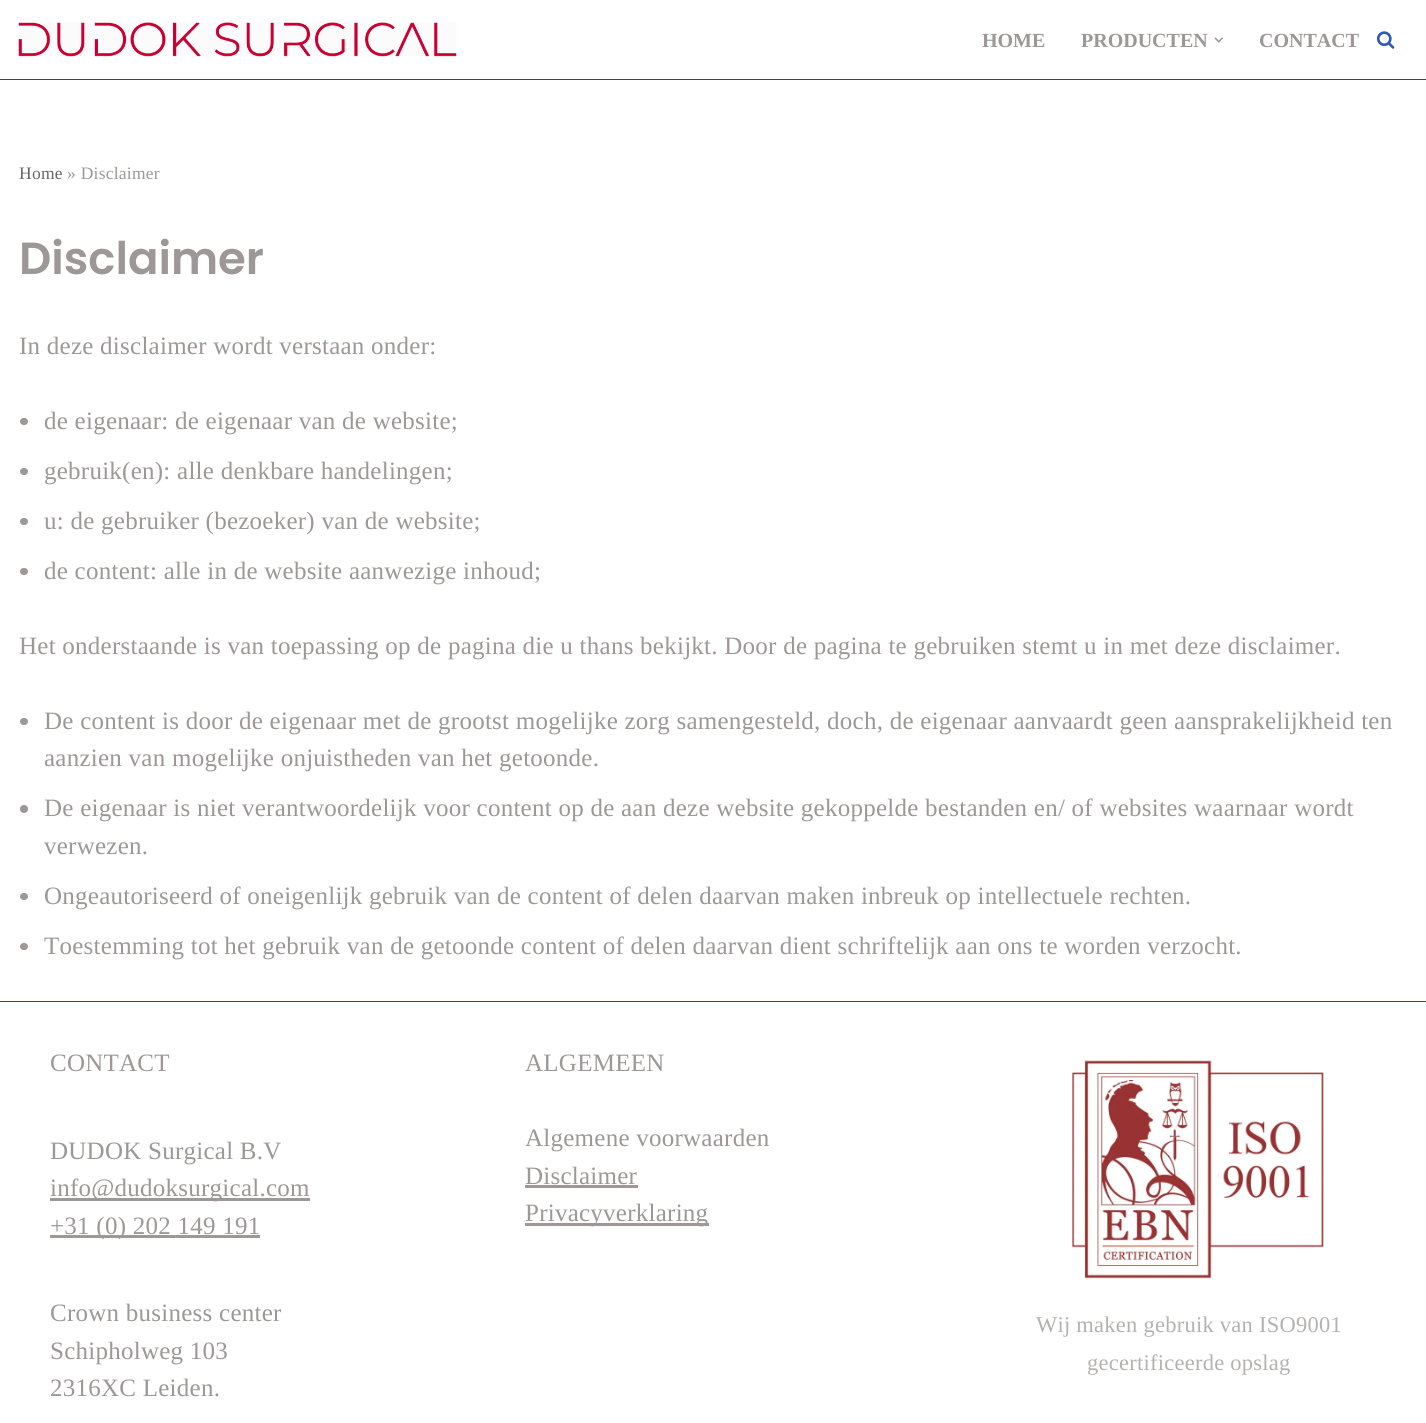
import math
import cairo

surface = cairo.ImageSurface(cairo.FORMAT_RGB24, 1426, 1423)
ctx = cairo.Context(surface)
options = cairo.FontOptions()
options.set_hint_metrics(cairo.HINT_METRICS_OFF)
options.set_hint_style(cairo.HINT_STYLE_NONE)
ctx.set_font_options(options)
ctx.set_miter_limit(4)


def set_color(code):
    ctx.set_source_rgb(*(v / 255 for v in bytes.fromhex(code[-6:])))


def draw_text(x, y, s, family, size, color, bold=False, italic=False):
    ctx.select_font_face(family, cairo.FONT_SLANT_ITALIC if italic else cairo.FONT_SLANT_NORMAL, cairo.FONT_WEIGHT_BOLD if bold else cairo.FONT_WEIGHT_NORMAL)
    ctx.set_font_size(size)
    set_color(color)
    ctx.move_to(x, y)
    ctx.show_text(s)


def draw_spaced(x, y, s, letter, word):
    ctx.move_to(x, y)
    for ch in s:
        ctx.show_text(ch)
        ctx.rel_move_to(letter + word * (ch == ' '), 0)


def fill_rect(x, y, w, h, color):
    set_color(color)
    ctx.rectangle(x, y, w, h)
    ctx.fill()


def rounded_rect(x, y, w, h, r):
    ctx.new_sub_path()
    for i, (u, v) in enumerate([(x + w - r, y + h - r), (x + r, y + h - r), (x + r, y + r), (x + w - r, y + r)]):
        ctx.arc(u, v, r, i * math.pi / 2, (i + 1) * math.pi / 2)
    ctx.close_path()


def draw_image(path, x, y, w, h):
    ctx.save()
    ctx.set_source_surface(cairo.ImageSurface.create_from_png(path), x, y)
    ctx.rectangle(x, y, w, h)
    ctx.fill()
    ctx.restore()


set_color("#ffffff")
ctx.paint()
fill_rect(0, 79, 1426, 1, "#cc0033")
draw_image("assets/img1.png", 18, 22, 439, 35)
draw_text(982, 47, "HOME", "Liberation Serif", 20, "#9d9797", bold=True)
draw_text(1081, 47, "PRODUCTEN", "Liberation Serif", 20, "#9d9797", bold=True)
draw_image("assets/img2.png", 1214, 37, 9, 6)
draw_text(1259, 47, "CONTACT", "Liberation Serif", 20, "#9d9797", bold=True)
draw_image("assets/img3.png", 1376, 31, 19, 18)
ctx.select_font_face("Liberation Serif")
ctx.set_font_size(17.5)
set_color("#676767")
draw_spaced(19, 179, "Home", 0.25, 0)
set_color("#9d9797")
draw_spaced(67, 179, "» Disclaimer", 0.25, 0)
draw_text(19, 274, "Disclaimer", "Poppins SemiBold", 45, "#9d9797")
ctx.select_font_face("Liberation Serif")
ctx.set_font_size(25)
draw_spaced(19, 354, "In deze disclaimer wordt verstaan onder:", 0.25, 0)
rounded_rect(20, 418, 8, 7, 3.5)
ctx.fill()
draw_spaced(44, 429, "de eigenaar: de eigenaar van de website;", 0.25, 0)
rounded_rect(20, 468, 8, 7, 3.5)
ctx.fill()
draw_spaced(44, 479, "gebruik(en): alle denkbare handelingen;", 0.25, 0)
rounded_rect(20, 518, 8, 7, 3.5)
ctx.fill()
draw_spaced(44, 529, "u: de gebruiker (bezoeker) van de website;", 0.25, 0)
rounded_rect(20, 568, 8, 7, 3.5)
ctx.fill()
draw_spaced(44, 579, "de content: alle in de website aanwezige inhoud;", 0.25, 0)
draw_spaced(19, 654, "Het onderstaande is van toepassing op de pagina die u thans bekijkt. Door de pagina te gebruiken stemt u in met deze disclaimer.", 0.25, 0)
rounded_rect(20, 718, 8, 7, 3.5)
ctx.fill()
draw_spaced(44, 729, "De content is door de eigenaar met de grootst mogelijke zorg samengesteld, doch, de eigenaar aanvaardt geen aansprakelijkheid ten", 0.25, 0)
draw_spaced(44, 766, "aanzien van mogelijke onjuistheden van het getoonde.", 0.25, 0)
ctx.new_path()
ctx.arc(24, 809, 4, 0, 2 * math.pi)
ctx.fill()
draw_spaced(44, 816, "De eigenaar is niet verantwoordelijk voor content op de aan deze website gekoppelde bestanden en/ of websites waarnaar wordt", 0.25, 0)
draw_spaced(44, 854, "verwezen.", 0.25, 0)
rounded_rect(20, 893, 8, 7, 3.5)
ctx.fill()
draw_spaced(44, 904, "Ongeautoriseerd of oneigenlijk gebruik van de content of delen daarvan maken inbreuk op intellectuele rechten.", 0.25, 0)
rounded_rect(20, 943, 8, 7, 3.5)
ctx.fill()
draw_spaced(44, 954, "Toestemming tot het gebruik van de getoonde content of delen daarvan dient schriftelijk aan ons te worden verzocht.", 0.25, 0)
fill_rect(0, 1001, 1426, 1, "#cc0033")
set_color("#9d9797")
draw_spaced(50, 1071, "CONTACT", 0.25, 0)
draw_spaced(50, 1159, "DUDOK Surgical B.V", 0.25, 0)
fill_rect(50, 1198, 260, 3, "#9d9797")
draw_spaced(50, 1196, "info@dudoksurgical.com", 0.25, 0)
fill_rect(50, 1235, 210, 3, "#9d9797")
draw_spaced(50, 1234, "+31 (0) 202 149 191", 0.25, 0)
draw_spaced(50, 1321, "Crown business center", 0.25, 0)
draw_spaced(50, 1359, "Schipholweg 103", 0.25, 0)
draw_spaced(50, 1396, "2316XC Leiden.", 0.25, 0)
draw_spaced(525, 1071, "ALGEMEEN", 0.25, 0)
draw_spaced(525, 1146, "Algemene voorwaarden", 0.25, 0)
draw_spaced(525, 1184, "Disclaimer", 0.25, 0)
fill_rect(525, 1185, 113, 3, "#9d9797")
fill_rect(525, 1223, 184, 3, "#9d9797")
draw_spaced(525, 1221, "Privacyverklaring", 0.25, 0)
draw_image("assets/img4.png", 1071, 1060, 253, 219)
ctx.set_font_size(22.5)
set_color("#b6b1b1")
draw_spaced(1036, 1332, "Wij maken gebruik van ISO9001", 0.25, 0)
draw_spaced(1087, 1370, "gecertificeerde opslag", 0.25, 0)
surface.write_to_png("output.png")
